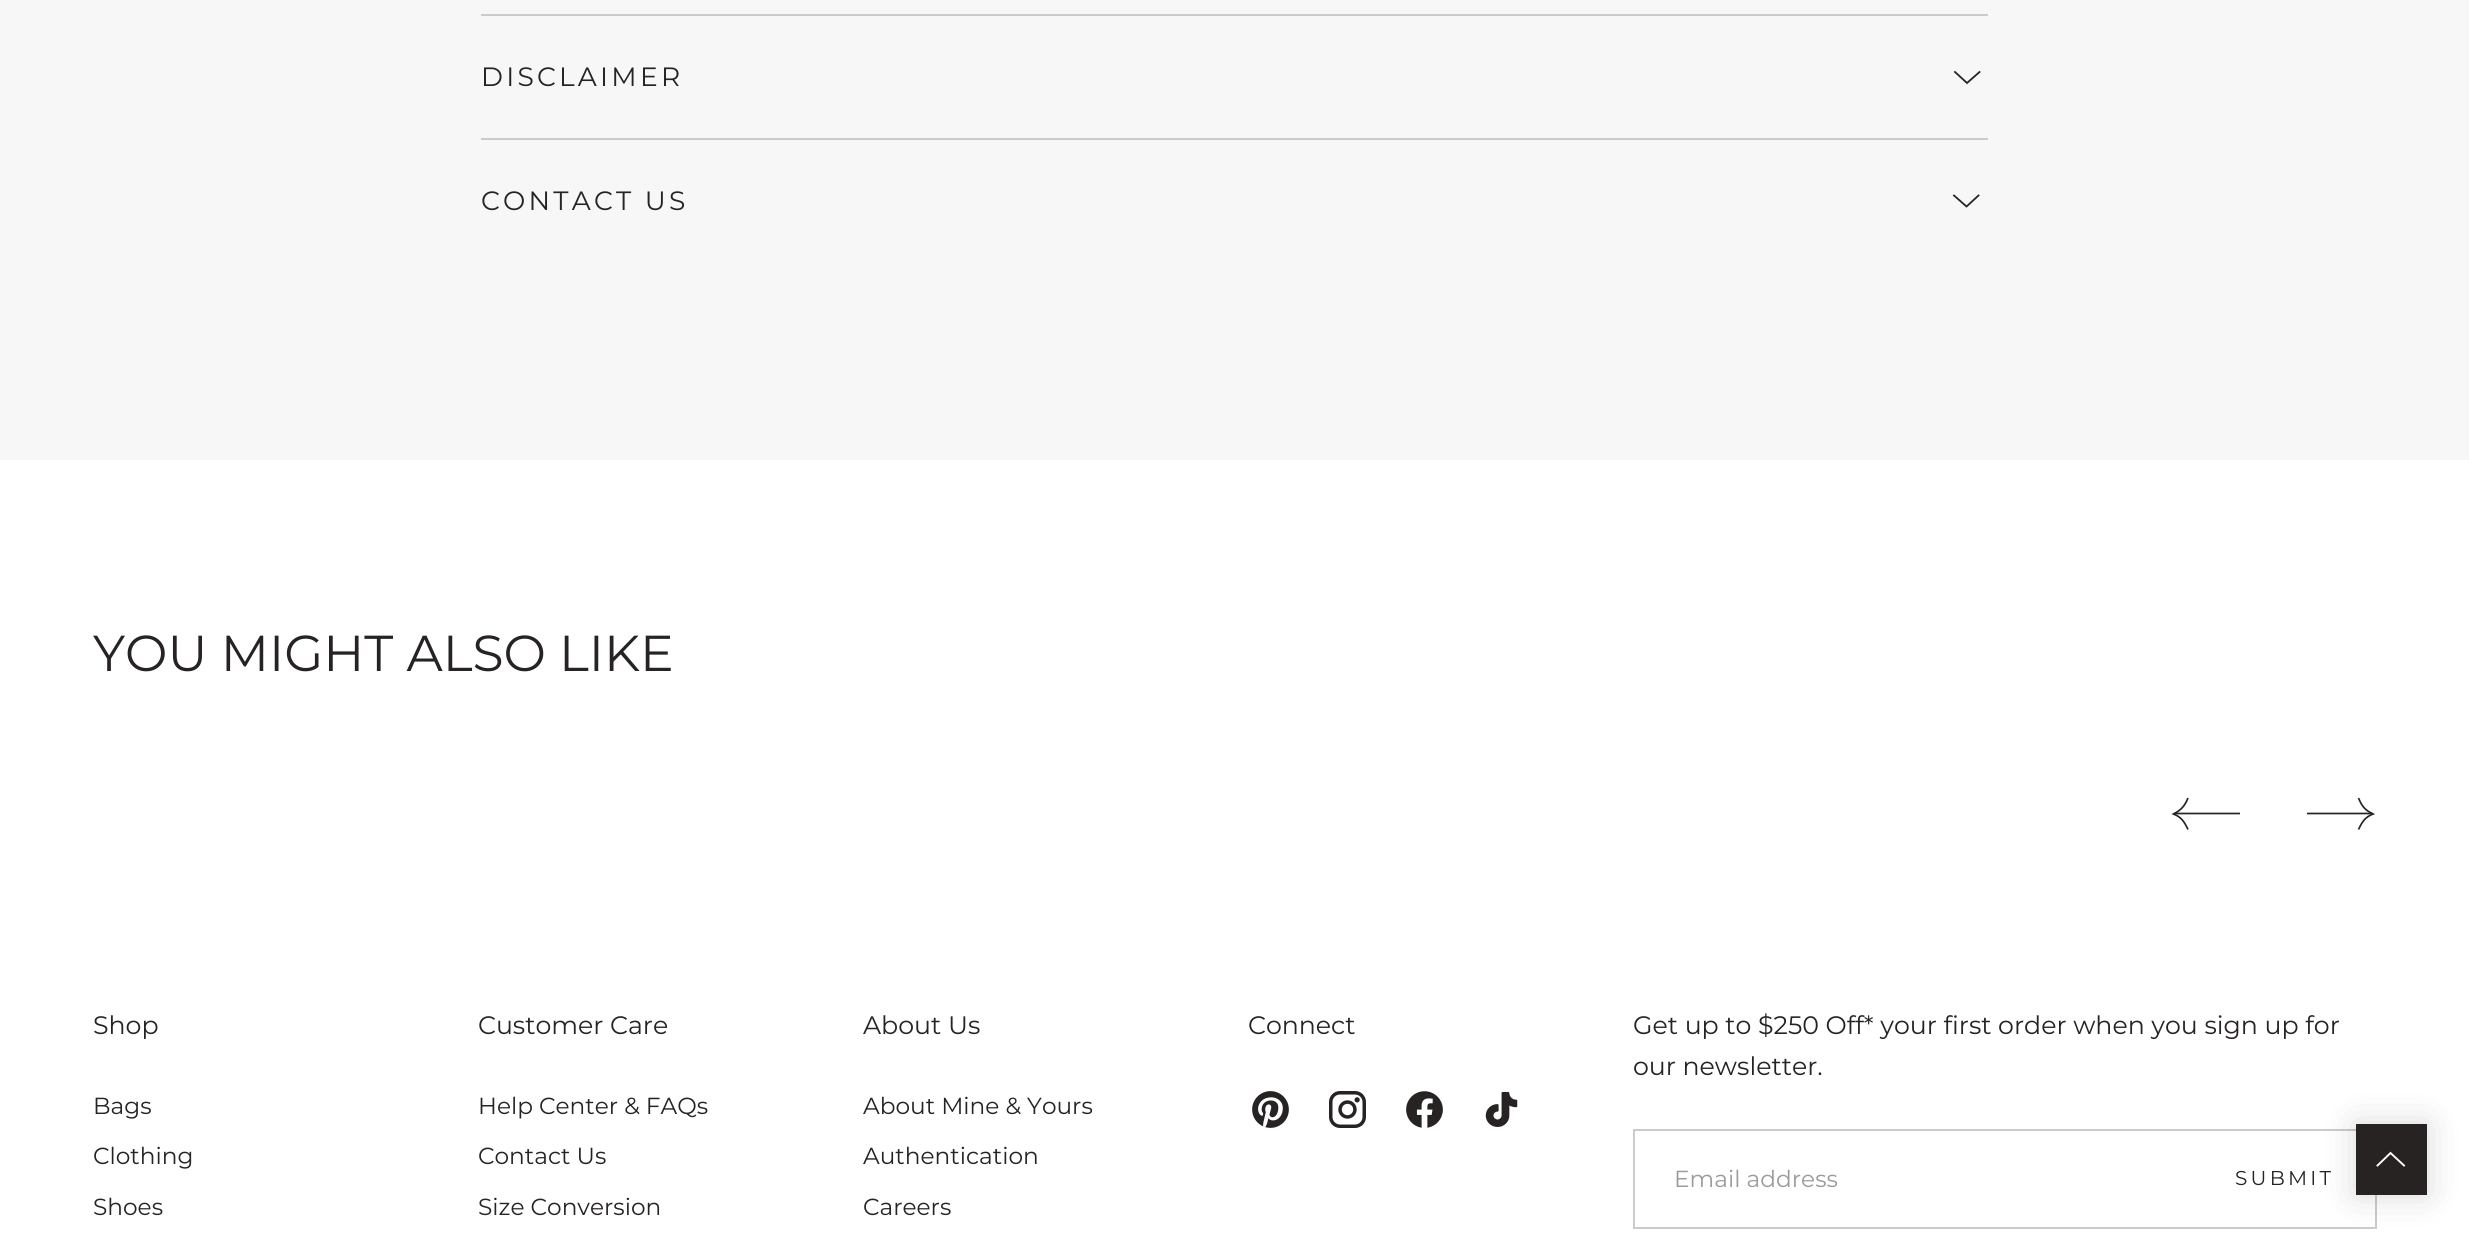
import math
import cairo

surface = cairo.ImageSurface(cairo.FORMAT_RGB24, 2469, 1236)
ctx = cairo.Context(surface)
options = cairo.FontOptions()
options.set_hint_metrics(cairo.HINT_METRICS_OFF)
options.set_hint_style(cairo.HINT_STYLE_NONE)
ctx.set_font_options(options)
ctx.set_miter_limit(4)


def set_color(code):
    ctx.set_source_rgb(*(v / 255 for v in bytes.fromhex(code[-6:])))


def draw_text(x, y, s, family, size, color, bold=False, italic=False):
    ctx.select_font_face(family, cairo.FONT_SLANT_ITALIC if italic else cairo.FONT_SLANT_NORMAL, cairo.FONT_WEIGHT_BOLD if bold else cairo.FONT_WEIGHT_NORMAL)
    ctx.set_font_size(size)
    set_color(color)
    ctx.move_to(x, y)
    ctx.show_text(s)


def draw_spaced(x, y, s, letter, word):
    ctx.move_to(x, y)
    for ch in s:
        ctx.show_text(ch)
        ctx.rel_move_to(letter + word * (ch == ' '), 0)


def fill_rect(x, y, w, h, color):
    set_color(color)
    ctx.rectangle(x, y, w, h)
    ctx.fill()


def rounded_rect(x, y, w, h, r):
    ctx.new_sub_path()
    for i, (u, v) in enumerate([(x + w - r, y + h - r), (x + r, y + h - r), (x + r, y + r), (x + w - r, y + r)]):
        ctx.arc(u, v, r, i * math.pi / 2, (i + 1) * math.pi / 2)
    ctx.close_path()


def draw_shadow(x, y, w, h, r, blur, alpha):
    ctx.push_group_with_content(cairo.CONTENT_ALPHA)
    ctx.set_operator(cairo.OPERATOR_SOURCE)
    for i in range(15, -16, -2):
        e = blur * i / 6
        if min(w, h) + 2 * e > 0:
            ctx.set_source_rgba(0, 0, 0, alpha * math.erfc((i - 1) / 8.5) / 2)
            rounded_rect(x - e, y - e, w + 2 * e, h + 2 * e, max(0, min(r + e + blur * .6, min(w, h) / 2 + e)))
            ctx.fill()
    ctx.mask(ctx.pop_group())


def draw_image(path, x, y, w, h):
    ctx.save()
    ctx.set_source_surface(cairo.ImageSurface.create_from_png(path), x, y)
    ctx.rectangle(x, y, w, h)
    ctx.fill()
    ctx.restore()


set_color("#ffffff")
ctx.paint()
fill_rect(0, 0, 2469, 460, "#f7f7f7")
fill_rect(481, 14, 1507, 2, "#cecaca")
ctx.select_font_face("Montserrat")
ctx.set_font_size(26.5)
set_color("#272323")
draw_spaced(481, 86, "DISCLAIMER", 3.25, 0)
ctx.new_path()
ctx.move_to(1955, 72)
ctx.line_to(1967, 83)
ctx.line_to(1979.5, 72)
ctx.set_line_width(1.8)
ctx.set_line_cap(cairo.LINE_CAP_SQUARE)
ctx.stroke()
fill_rect(481, 138, 1507, 2, "#cecaca")
set_color("#272323")
draw_spaced(481, 210, "CONTACT US", 3.25, 0)
ctx.new_path()
ctx.move_to(1954, 195.5)
ctx.line_to(1966.5, 206.5)
ctx.line_to(1978.5, 195.5)
ctx.stroke()
draw_text(93, 671, "YOU MIGHT ALSO LIKE", "Montserrat", 50.5, "#272323")
ctx.new_path()
ctx.move_to(2240, 813.5)
ctx.line_to(2174, 813.5)
ctx.set_line_width(1.7)
ctx.set_line_cap(cairo.LINE_CAP_BUTT)
ctx.stroke()
ctx.new_path()
ctx.move_to(2188, 829.5)
ctx.curve_to(2184, 821, 2181, 817, 2173.5, 814)
ctx.curve_to(2181, 810, 2184.5, 806.5, 2188, 798)
ctx.stroke()
ctx.save()
ctx.rectangle(2307, 781, 70, 66)
ctx.clip()
ctx.new_path()
ctx.move_to(2306.5, 813.5)
ctx.line_to(2372.5, 813.5)
ctx.stroke()
ctx.restore()
ctx.new_path()
ctx.move_to(2358.5, 829.5)
ctx.curve_to(2362.5, 821, 2365.5, 817, 2373, 814)
ctx.curve_to(2365, 810, 2362, 806.5, 2358.5, 798)
ctx.stroke()
draw_text(93, 1034, "Shop", "Montserrat", 25.25, "#272323")
draw_text(93, 1114, "Bags", "Montserrat", 23.25, "#272323")
draw_text(93, 1164, "Clothing", "Montserrat", 23.25, "#272323")
draw_text(93, 1215, "Shoes", "Montserrat", 23.25, "#272323")
draw_text(478, 1034, "Customer Care", "Montserrat", 25.25, "#272323")
draw_text(478, 1114, "Help Center & FAQs", "Montserrat", 23.25, "#272323")
draw_text(478, 1164, "Contact Us", "Montserrat", 23.25, "#272323")
draw_text(478, 1215, "Size Conversion", "Montserrat", 23.25, "#272323")
draw_text(863, 1034, "About Us", "Montserrat", 25.25, "#272323")
draw_text(863, 1114, "About Mine & Yours", "Montserrat", 23.25, "#272323")
draw_text(863, 1164, "Authentication", "Montserrat", 23.25, "#272323")
draw_text(863, 1215, "Careers", "Montserrat", 23.25, "#272323")
draw_text(1248, 1034, "Connect", "Montserrat", 25.25, "#272323")
draw_image("assets/img1.png", 1252, 1091, 37, 37)
draw_image("assets/img2.png", 1329, 1091, 37, 37)
draw_image("assets/img3.png", 1406, 1091, 37, 37)
draw_image("assets/img4.png", 1485, 1092, 33, 35)
draw_text(1633, 1034, "Get up to $250 Off* your first order when you sign up for", "Montserrat", 25.25, "#272323")
draw_text(1633, 1075, "our newsletter.", "Montserrat", 25.25, "#272323")
ctx.rectangle(1634, 1130, 742, 98)
set_color("#cecaca")
ctx.set_line_width(2)
ctx.stroke()
draw_text(1674, 1187, "Email address", "Montserrat", 23.25, "#9e9a99")
ctx.set_font_size(20)
set_color("#272323")
draw_spaced(2235, 1185, "SUBMIT", 3.25, 0)
set_color("#000000")
draw_shadow(2356, 1124, 71, 71, 0, 17.5, 0.15)
fill_rect(2356, 1124, 71, 71, "#272323")
ctx.new_path()
ctx.move_to(2377.5, 1165.5)
ctx.line_to(2390.5, 1153)
ctx.line_to(2404, 1165.5)
set_color("#ffffff")
ctx.set_line_width(1.9)
ctx.set_line_cap(cairo.LINE_CAP_SQUARE)
ctx.stroke()
surface.write_to_png("output.png")
